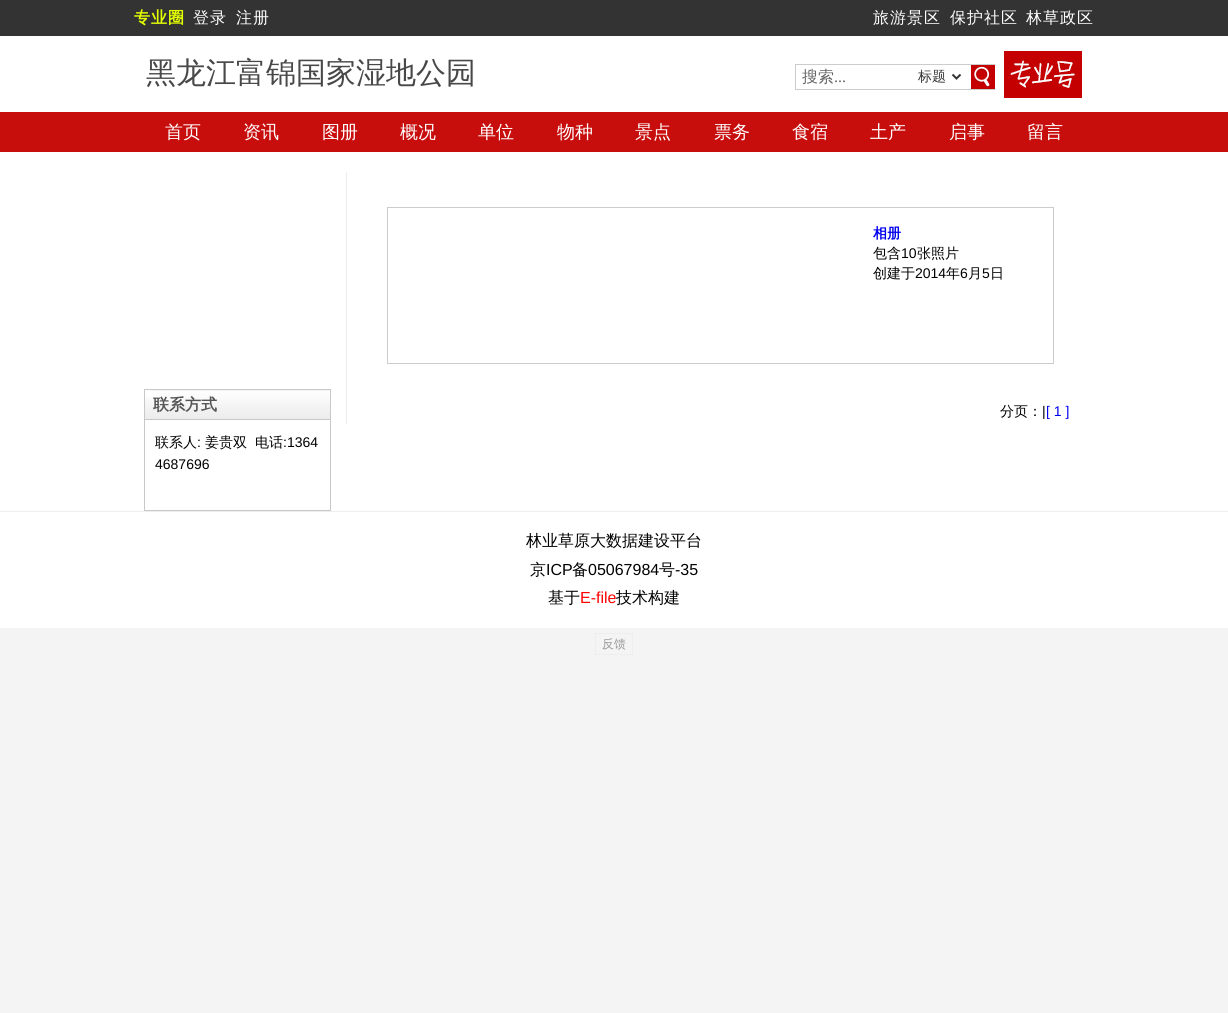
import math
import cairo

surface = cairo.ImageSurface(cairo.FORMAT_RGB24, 1228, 1013)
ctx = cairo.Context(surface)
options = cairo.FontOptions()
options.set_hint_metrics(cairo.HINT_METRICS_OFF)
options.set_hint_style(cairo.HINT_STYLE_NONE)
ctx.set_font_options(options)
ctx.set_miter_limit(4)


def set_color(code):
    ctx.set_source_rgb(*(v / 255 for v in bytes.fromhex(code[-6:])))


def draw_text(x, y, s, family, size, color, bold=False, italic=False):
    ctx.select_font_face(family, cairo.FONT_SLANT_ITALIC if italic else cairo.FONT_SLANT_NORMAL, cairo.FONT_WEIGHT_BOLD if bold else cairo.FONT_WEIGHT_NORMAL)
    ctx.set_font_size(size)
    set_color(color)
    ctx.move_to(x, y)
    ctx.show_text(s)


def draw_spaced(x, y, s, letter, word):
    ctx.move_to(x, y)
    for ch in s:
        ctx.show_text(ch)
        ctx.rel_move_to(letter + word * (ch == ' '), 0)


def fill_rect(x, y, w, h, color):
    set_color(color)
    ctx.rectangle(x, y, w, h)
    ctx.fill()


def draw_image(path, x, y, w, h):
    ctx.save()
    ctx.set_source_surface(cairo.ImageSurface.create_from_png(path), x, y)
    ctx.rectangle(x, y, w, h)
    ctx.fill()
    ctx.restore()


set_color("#f4f4f4")
ctx.paint()
fill_rect(0, 36, 1228, 592, "#ffffff")
fill_rect(0, 0, 1228, 36, "#333333")
ctx.select_font_face("WenQuanYi Zen Hei", cairo.FONT_SLANT_NORMAL, cairo.FONT_WEIGHT_BOLD)
ctx.set_font_size(16)
set_color("#e4ff00")
draw_spaced(134, 23, "专业圈", 1, 0)
ctx.select_font_face("WenQuanYi Zen Hei Medium")
set_color("#ffffff")
draw_spaced(193, 23, "登录", 1, 0)
draw_spaced(236, 23, "注册", 1, 0)
draw_spaced(873, 23, "旅游景区", 1, 0)
draw_spaced(950, 23, "保护社区", 1, 0)
draw_spaced(1026, 23, "林草政区", 1, 0)
draw_text(146, 83, "黑龙江富锦国家湿地公园", "WenQuanYi Zen Hei Medium", 30, "#494848")
ctx.rectangle(795.5, 64.5, 199, 25)
set_color("#cccccc")
ctx.set_line_width(1)
ctx.stroke()
draw_text(802, 82, "搜索", "WenQuanYi Zen Hei Medium", 16, "#666666")
draw_text(834, 82, "...", "Liberation Serif", 16, "#666666")
ctx.new_path()
ctx.move_to(952.5, 74.5)
ctx.line_to(956.5, 78.5)
ctx.line_to(960.5, 74.5)
set_color("#333333")
ctx.set_line_width(2)
ctx.stroke()
draw_text(918, 81, "标题", "WenQuanYi Zen Hei Medium", 14, "#333333")
fill_rect(971, 65, 24, 24, "#c50000")
draw_image("assets/img1.png", 974, 66, 16, 22)
draw_image("assets/img2.png", 1004, 51, 78, 47)
fill_rect(0, 112, 1228, 40, "#c80d0d")
draw_text(165, 138, "首页", "WenQuanYi Zen Hei Medium", 18, "#ffffff")
draw_text(243, 138, "资讯", "WenQuanYi Zen Hei Medium", 18, "#ffffff")
draw_text(322, 138, "图册", "WenQuanYi Zen Hei Medium", 18, "#ffffff")
draw_text(400, 138, "概况", "WenQuanYi Zen Hei Medium", 18, "#ffffff")
draw_text(478, 138, "单位", "WenQuanYi Zen Hei Medium", 18, "#ffffff")
draw_text(557, 138, "物种", "WenQuanYi Zen Hei Medium", 18, "#ffffff")
draw_text(635, 138, "景点", "WenQuanYi Zen Hei Medium", 18, "#ffffff")
draw_text(714, 138, "票务", "WenQuanYi Zen Hei Medium", 18, "#ffffff")
draw_text(792, 138, "食宿", "WenQuanYi Zen Hei Medium", 18, "#ffffff")
draw_text(870, 138, "土产", "WenQuanYi Zen Hei Medium", 18, "#ffffff")
draw_text(949, 138, "启事", "WenQuanYi Zen Hei Medium", 18, "#ffffff")
draw_text(1027, 138, "留言", "WenQuanYi Zen Hei Medium", 18, "#ffffff")
fill_rect(346, 172, 1, 252, "#eaeeef")
ctx.rectangle(387.5, 207.5, 666, 156)
set_color("#cccccc")
ctx.set_line_width(1)
ctx.stroke()
draw_text(873, 238, "相册", "WenQuanYi Zen Hei", 14, "#0000ee", bold=True)
draw_text(873, 258, "包含", "WenQuanYi Zen Hei Medium", 14, "#000000")
draw_text(901, 258, "10", "Liberation Sans", 14, "#000000")
draw_text(917, 258, "张照片", "WenQuanYi Zen Hei Medium", 14, "#000000")
draw_text(873, 278, "创建于", "WenQuanYi Zen Hei Medium", 14, "#000000")
draw_text(915, 278, "2014", "Liberation Sans", 14, "#000000")
draw_text(946, 278, "年", "WenQuanYi Zen Hei Medium", 14, "#000000")
draw_text(960, 278, "6", "Liberation Sans", 14, "#000000")
draw_text(968, 278, "月", "WenQuanYi Zen Hei Medium", 14, "#000000")
draw_text(982, 278, "5", "Liberation Sans", 14, "#000000")
draw_text(990, 278, "日", "WenQuanYi Zen Hei Medium", 14, "#000000")
draw_text(1000, 416, "分页：", "WenQuanYi Zen Hei Medium", 14, "#000000")
draw_text(1042, 416, "|", "Liberation Sans", 14, "#000000")
draw_text(1046, 416, "[ 1 ]", "Liberation Sans", 14, "#0000ee")
ctx.rectangle(144.5, 389.5, 186, 121)
set_color("#c8c8c8")
ctx.stroke()
draw_image("assets/img3.png", 145, 397, 6, 23)
draw_image("assets/img4.png", 151, 390, 179, 30)
draw_text(153, 410, "联系方式", "WenQuanYi Zen Hei", 16, "#555555", bold=True)
draw_text(155, 447, "联系人", "WenQuanYi Zen Hei Medium", 14, "#000000")
draw_text(197, 447, ":", "Liberation Sans", 14, "#000000")
draw_text(205, 447, "姜贵双", "WenQuanYi Zen Hei Medium", 14, "#000000")
draw_text(255, 447, "电话", "WenQuanYi Zen Hei Medium", 14, "#000000")
draw_text(283, 447, ":1364", "Liberation Sans", 14, "#000000")
draw_text(155, 469, "4687696", "Liberation Sans", 14, "#000000")
fill_rect(0, 511, 1228, 1, "#eeeeee")
draw_text(526, 546, "林业草原大数据建设平台", "WenQuanYi Zen Hei Medium", 16, "#000000")
draw_text(530, 575, "京", "WenQuanYi Zen Hei Medium", 16, "#000000")
draw_text(546, 575, "ICP", "Liberation Sans", 16, "#000000")
draw_text(572, 575, "备", "WenQuanYi Zen Hei Medium", 16, "#000000")
draw_text(588, 575, "05067984", "Liberation Sans", 16, "#000000")
draw_text(659, 575, "号", "WenQuanYi Zen Hei Medium", 16, "#000000")
draw_text(675, 575, "-35", "Liberation Sans", 16, "#000000")
draw_text(548, 603, "基于", "WenQuanYi Zen Hei Medium", 16, "#000000")
draw_text(580, 603, "E-file", "Liberation Sans", 16, "#ff0000")
draw_text(616, 603, "技术构建", "WenQuanYi Zen Hei Medium", 16, "#000000")
ctx.rectangle(595.5, 633.5, 37, 21)
set_color("#eeeeee")
ctx.stroke()
draw_text(602, 648, "反馈", "WenQuanYi Zen Hei Medium", 12, "#999999")
surface.write_to_png("output.png")
